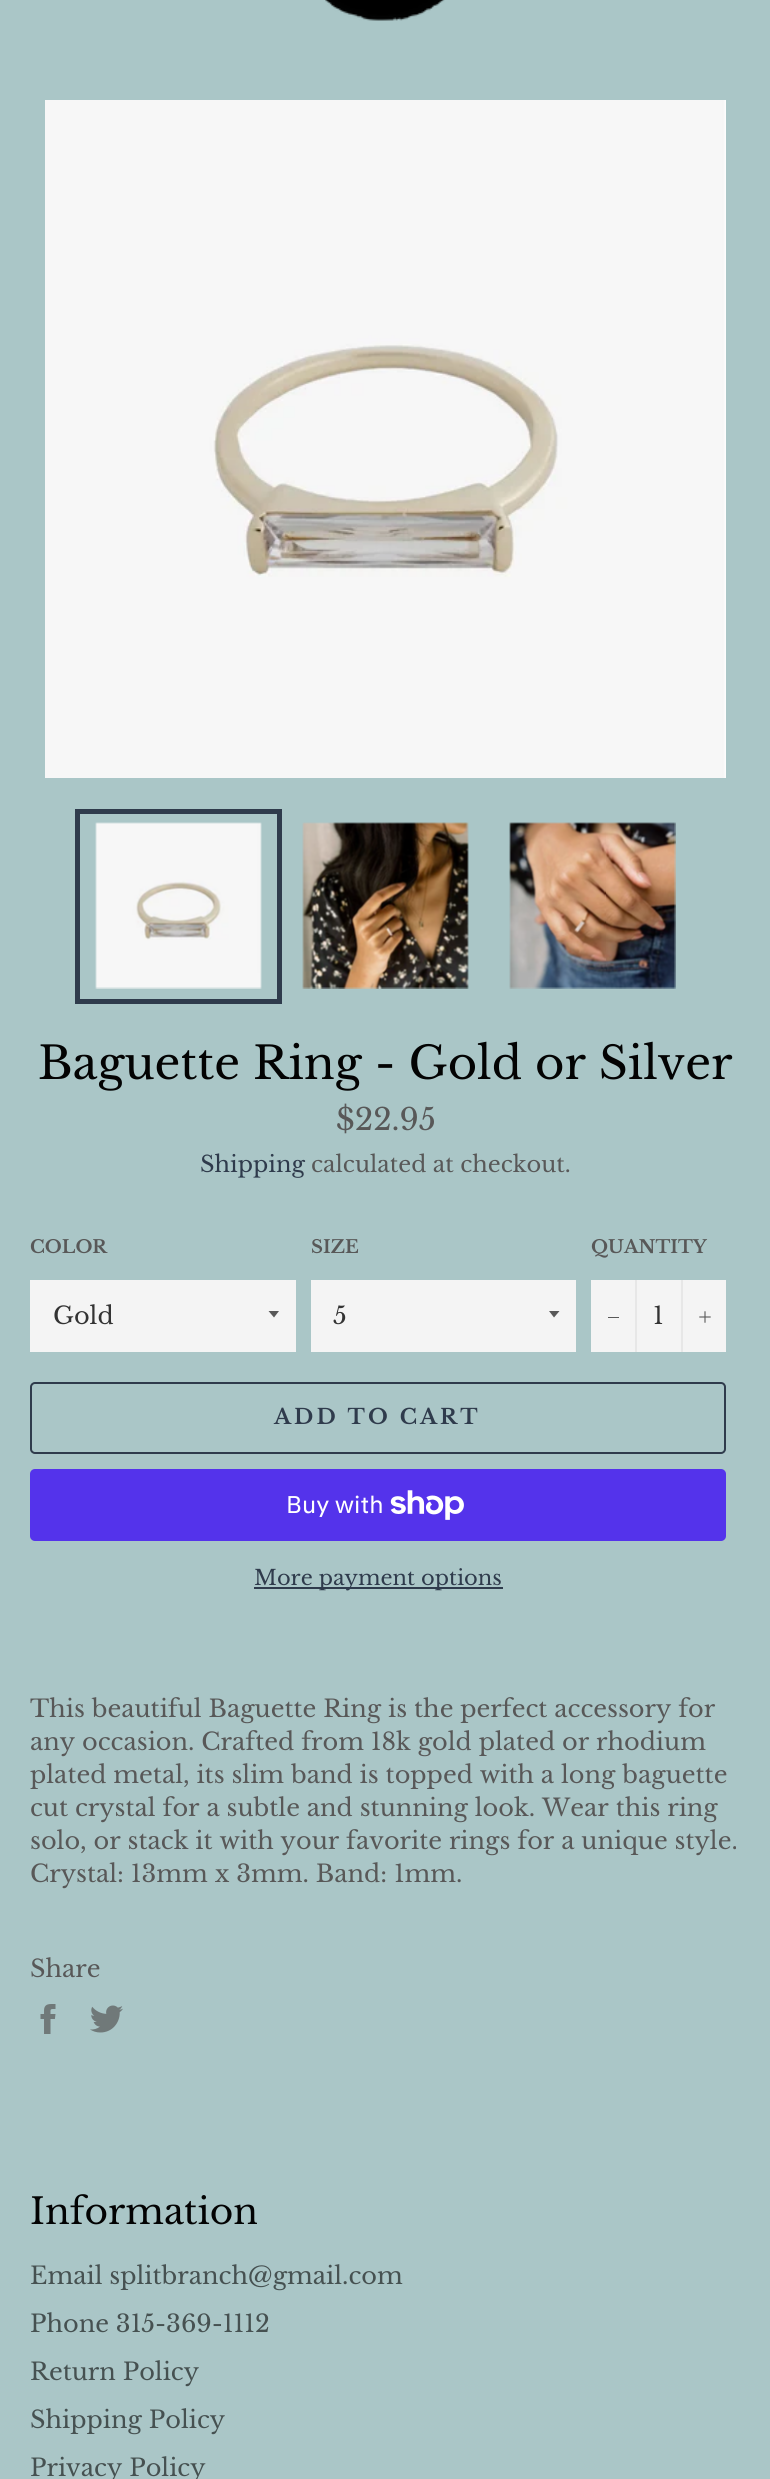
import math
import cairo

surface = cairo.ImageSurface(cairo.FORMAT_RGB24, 770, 2479)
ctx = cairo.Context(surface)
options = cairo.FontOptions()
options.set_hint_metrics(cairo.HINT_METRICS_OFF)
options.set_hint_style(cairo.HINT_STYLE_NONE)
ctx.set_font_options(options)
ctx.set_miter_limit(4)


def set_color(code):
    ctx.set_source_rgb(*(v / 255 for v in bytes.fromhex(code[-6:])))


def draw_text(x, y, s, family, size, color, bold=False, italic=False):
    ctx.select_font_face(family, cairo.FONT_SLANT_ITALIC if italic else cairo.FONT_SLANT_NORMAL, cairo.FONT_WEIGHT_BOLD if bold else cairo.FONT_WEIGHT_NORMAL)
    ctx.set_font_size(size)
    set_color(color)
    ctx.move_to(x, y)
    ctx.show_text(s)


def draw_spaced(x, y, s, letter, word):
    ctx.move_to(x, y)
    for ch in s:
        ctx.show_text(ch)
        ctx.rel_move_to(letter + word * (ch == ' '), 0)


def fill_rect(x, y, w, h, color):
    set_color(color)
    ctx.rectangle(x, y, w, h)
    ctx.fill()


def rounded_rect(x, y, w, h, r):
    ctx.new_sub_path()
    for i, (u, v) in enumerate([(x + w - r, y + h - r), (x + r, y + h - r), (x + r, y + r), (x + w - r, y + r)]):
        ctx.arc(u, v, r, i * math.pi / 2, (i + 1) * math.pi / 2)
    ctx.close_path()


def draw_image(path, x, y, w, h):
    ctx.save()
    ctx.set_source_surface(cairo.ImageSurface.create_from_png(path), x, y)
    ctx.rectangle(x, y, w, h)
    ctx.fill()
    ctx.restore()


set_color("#aac6c7")
ctx.paint()
draw_image("assets/img1.png", 325, 0, 120, 21)
draw_image("assets/img2.png", 45, 100, 681, 678)
draw_image("assets/img3.png", 95, 822, 167, 167)
ctx.rectangle(77.5, 811.5, 202, 190)
set_color("#2f3b4c")
ctx.set_line_width(5)
ctx.stroke()
draw_image("assets/img4.png", 302, 822, 167, 167)
draw_image("assets/img5.png", 509, 822, 167, 167)
draw_text(38, 1079, "Baguette Ring - Gold or Silver", "Libre Baskerville", 45, "#030303")
draw_text(336, 1130, "$22.95", "Libre Baskerville", 30, "#585858")
draw_text(200, 1172, "Shipping", "Libre Baskerville", 22.5, "#2f3b4c")
draw_text(311, 1172, "calculated at checkout.", "Libre Baskerville", 22.5, "#585858")
draw_text(30, 1253, "COLOR", "Libre Baskerville", 18, "#585858", bold=True)
fill_rect(30, 1280, 266, 72, "#f4f4f4")
set_color("#585858")
ctx.new_path()
ctx.move_to(268.5, 1311)
ctx.line_to(274, 1317.5)
ctx.line_to(279, 1311)
ctx.close_path()
ctx.fill()
draw_text(53, 1324, "Gold", "Libre Baskerville", 24, "#333333")
draw_text(311, 1253, "SIZE", "Libre Baskerville", 18, "#585858", bold=True)
fill_rect(311, 1280, 265, 72, "#f4f4f4")
set_color("#585858")
ctx.new_path()
ctx.move_to(549, 1311)
ctx.line_to(554, 1317.5)
ctx.line_to(559.5, 1311)
ctx.close_path()
ctx.fill()
draw_text(333, 1324, "5", "Libre Baskerville", 24, "#333333")
draw_text(591, 1253, "QUANTITY", "Libre Baskerville", 18, "#585858", bold=True)
fill_rect(591, 1280, 135, 72, "#f4f4f4")
fill_rect(635, 1280, 2, 72, "#e7e7e7")
fill_rect(608, 1317, 11, 1, "#585858")
draw_text(653, 1324, "1", "Libre Baskerville", 24, "#333333")
fill_rect(681, 1280, 2, 72, "#e7e7e7")
draw_image("assets/img6.png", 699, 1311, 12, 12)
rounded_rect(31, 1383, 694, 70, 4)
set_color("#2f3b4c")
ctx.set_line_width(2)
ctx.stroke()
ctx.select_font_face("Libre Baskerville", cairo.FONT_SLANT_NORMAL, cairo.FONT_WEIGHT_BOLD)
ctx.set_font_size(21)
draw_spaced(274, 1424, "ADD TO CART", 3.1, 0)
set_color("#5433eb")
rounded_rect(30, 1469, 696, 72, 5)
ctx.fill()
draw_text(286, 1513, "Buy with", "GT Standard", 24, "#ffffff")
draw_image("assets/img7.png", 390, 1490, 74, 30)
fill_rect(254, 1587, 249, 2, "#2f3b4c")
draw_text(254, 1585, "More payment options", "Libre Baskerville", 21, "#2f3b4c")
draw_text(30, 1717, "This beautiful Baguette Ring is the perfect accessory for", "Libre Baskerville", 24, "#585858")
draw_text(30, 1750, "any occasion. Crafted from 18k gold plated or rhodium", "Libre Baskerville", 24, "#585858")
draw_text(30, 1783, "plated metal, its slim band is topped with a long baguette", "Libre Baskerville", 24, "#585858")
draw_text(30, 1816, "cut crystal for a subtle and stunning look. Wear this ring", "Libre Baskerville", 24, "#585858")
draw_text(30, 1849, "solo, or stack it with your favorite rings for a unique style.", "Libre Baskerville", 24, "#585858")
draw_text(30, 1882, "Crystal: 13mm x 3mm. Band: 1mm.", "Libre Baskerville", 24, "#585858")
draw_text(30, 1977, "Share", "Libre Baskerville", 24, "#585858")
draw_image("assets/img8.png", 40, 2004, 16, 30)
draw_image("assets/img9.png", 90, 2005, 33, 28)
draw_text(30, 2224, "Information", "Libre Baskerville", 36, "#030303")
draw_text(30, 2284, "Email splitbranch@gmail.com", "Libre Baskerville", 24, "#465151")
draw_text(30, 2332, "Phone 315-369-1112", "Libre Baskerville", 24, "#465151")
draw_text(30, 2380, "Return Policy", "Libre Baskerville", 24, "#465151")
draw_text(30, 2428, "Shipping Policy", "Libre Baskerville", 24, "#465151")
draw_text(30, 2476, "Privacy Policy", "Libre Baskerville", 24, "#465151")
surface.write_to_png("output.png")
